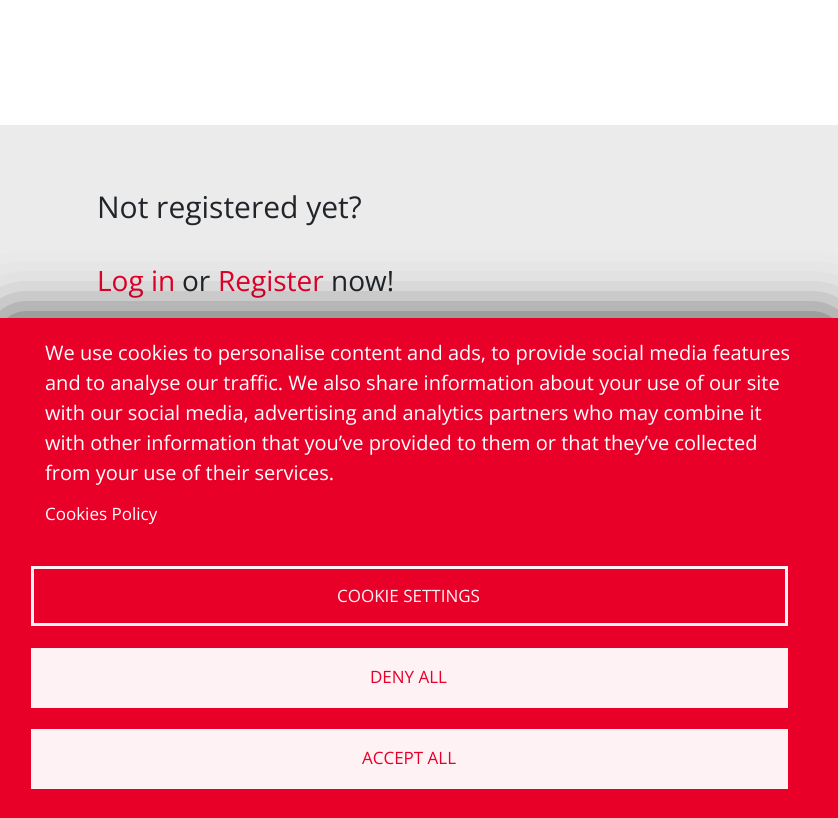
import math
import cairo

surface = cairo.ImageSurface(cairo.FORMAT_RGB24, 838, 818)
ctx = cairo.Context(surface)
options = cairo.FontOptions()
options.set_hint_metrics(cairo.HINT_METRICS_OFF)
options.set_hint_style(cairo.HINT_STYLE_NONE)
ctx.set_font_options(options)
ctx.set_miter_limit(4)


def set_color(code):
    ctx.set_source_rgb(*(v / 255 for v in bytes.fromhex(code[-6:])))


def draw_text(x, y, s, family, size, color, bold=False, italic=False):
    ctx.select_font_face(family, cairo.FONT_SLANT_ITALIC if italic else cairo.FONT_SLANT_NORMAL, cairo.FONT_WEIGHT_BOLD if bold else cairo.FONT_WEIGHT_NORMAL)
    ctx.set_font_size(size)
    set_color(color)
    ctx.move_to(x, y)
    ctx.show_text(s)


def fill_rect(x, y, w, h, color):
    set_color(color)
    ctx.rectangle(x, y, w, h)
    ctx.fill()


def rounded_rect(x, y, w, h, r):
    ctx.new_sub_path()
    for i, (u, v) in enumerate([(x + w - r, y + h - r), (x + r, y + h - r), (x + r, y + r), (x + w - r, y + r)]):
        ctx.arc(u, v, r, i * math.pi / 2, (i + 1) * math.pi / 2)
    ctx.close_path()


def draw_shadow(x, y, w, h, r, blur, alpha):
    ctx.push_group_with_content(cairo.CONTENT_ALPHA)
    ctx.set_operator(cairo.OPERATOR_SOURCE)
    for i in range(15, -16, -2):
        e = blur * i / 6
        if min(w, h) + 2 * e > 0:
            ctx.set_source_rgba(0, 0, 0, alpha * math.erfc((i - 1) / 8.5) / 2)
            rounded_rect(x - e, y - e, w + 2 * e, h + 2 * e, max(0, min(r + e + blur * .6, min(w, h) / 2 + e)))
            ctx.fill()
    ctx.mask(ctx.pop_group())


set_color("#ffffff")
ctx.paint()
fill_rect(0, 125, 838, 193, "#ebebeb")
draw_text(97, 218, "Not registered yet?", "Open Sans", 30, "#212529")
draw_text(97, 291, "Log in", "Open Sans", 28, "#e90029")
draw_text(182, 291, "or", "Open Sans", 28, "#212529")
draw_text(218, 291, "Register", "Open Sans", 28, "#e90029")
draw_text(331, 291, "now!", "Open Sans", 28, "#212529")
set_color("#000000")
draw_shadow(9, 326, 821, 484, 0, 30, 0.89)
fill_rect(0, 318, 838, 500, "#e90029")
draw_text(45, 360, "We use cookies to personalise content and ads, to provide social media features", "Open Sans", 20, "#ffffff")
draw_text(45, 390, "and to analyse our traffic. We also share information about your use of our site", "Open Sans", 20, "#ffffff")
draw_text(45, 420, "with our social media, advertising and analytics partners who may combine it", "Open Sans", 20, "#ffffff")
draw_text(45, 450, "with other information that you’ve provided to them or that they’ve collected", "Open Sans", 20, "#ffffff")
draw_text(45, 480, "from your use of their services.", "Open Sans", 20, "#ffffff")
draw_text(45, 520, "Cookies Policy", "Open Sans", 17, "#ffffff")
ctx.rectangle(32.5, 567.5, 754, 57)
set_color("#fef2f4")
ctx.set_line_width(3)
ctx.stroke()
draw_text(337, 602, "COOKIE SETTINGS", "Open Sans", 17, "#fef2f4")
fill_rect(31, 648, 757, 60, "#fef2f4")
draw_text(370, 683, "DENY ALL", "Open Sans", 17, "#e90029")
fill_rect(31, 729, 757, 60, "#fef2f4")
draw_text(362, 764, "ACCEPT ALL", "Open Sans", 17, "#e90029")
surface.write_to_png("output.png")
